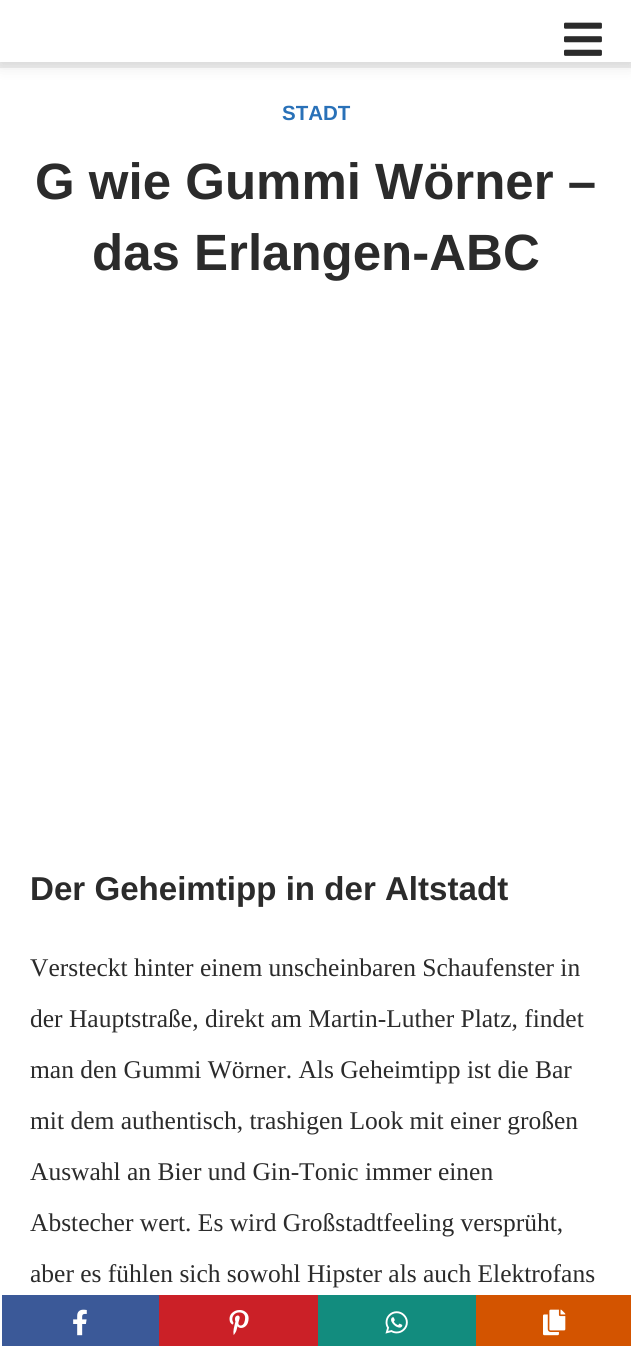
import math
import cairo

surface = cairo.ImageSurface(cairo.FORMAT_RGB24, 631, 1346)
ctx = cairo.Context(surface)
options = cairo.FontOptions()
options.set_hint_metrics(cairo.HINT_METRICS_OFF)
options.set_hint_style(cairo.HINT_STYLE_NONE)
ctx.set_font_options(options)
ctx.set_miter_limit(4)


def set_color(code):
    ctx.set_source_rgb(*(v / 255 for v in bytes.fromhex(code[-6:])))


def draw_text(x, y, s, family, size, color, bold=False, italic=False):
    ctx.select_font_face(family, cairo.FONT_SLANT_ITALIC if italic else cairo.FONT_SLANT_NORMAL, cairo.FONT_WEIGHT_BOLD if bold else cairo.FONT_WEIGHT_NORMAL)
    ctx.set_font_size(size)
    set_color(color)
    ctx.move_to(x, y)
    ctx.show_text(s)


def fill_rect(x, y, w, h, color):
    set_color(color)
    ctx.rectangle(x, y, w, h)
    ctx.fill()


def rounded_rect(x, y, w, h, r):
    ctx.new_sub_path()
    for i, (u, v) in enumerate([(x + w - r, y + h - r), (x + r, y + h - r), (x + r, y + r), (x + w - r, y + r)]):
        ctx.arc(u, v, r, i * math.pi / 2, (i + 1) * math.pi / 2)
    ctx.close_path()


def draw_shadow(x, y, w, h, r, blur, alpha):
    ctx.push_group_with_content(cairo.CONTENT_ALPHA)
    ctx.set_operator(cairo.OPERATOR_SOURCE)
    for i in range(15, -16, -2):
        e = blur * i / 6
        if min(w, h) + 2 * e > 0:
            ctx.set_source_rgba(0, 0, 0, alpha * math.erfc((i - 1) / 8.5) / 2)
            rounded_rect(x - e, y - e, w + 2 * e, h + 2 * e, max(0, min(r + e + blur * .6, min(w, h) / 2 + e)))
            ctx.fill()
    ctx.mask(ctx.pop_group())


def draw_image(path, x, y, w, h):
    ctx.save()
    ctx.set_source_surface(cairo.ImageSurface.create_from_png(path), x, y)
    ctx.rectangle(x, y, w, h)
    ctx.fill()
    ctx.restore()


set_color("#eeeeee")
ctx.paint()
fill_rect(0, 68, 631, 1278, "#ffffff")
set_color("#000000")
draw_shadow(0, 5, 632, 61, 0, 7.5, 0.1)
fill_rect(0, 0, 631, 62, "#ffffff")
draw_image("assets/img1.png", 564, 22, 38, 34)
draw_text(282, 120, "STADT", "Liberation Sans", 20.5, "#2971b8", bold=True)
draw_text(35, 199, "G wie Gummi Wörner –", "Liberation Sans", 51, "#2b2b2b", bold=True)
draw_text(92, 270, "das Erlangen-ABC", "Liberation Sans", 51, "#2b2b2b", bold=True)
draw_text(30, 900, "Der Geheimtipp in der Altstadt", "Liberation Sans", 33.1, "#2b2b2b", bold=True)
draw_text(30, 976, "Versteckt hinter einem unscheinbaren Schaufenster in", "Liberation Serif", 25.5, "#2b2b2b")
draw_text(30, 1027, "der Hauptstraße, direkt am Martin-Luther Platz, findet", "Liberation Serif", 25.5, "#2b2b2b")
draw_text(30, 1078, "man den Gummi Wörner. Als Geheimtipp ist die Bar", "Liberation Serif", 25.5, "#2b2b2b")
draw_text(30, 1129, "mit dem authentisch, trashigen Look mit einer großen", "Liberation Serif", 25.5, "#2b2b2b")
draw_text(30, 1180, "Auswahl an Bier und Gin-Tonic immer einen", "Liberation Serif", 25.5, "#2b2b2b")
draw_text(30, 1231, "Abstecher wert. Es wird Großstadtfeeling versprüht,", "Liberation Serif", 25.5, "#2b2b2b")
draw_text(30, 1282, "aber es fühlen sich sowohl Hipster als auch Elektrofans", "Liberation Serif", 25.5, "#2b2b2b")
fill_rect(2, 1295, 157, 51, "#3b5998")
draw_image("assets/img2.png", 73, 1309, 14, 27)
fill_rect(159, 1295, 159, 51, "#cb2027")
draw_image("assets/img3.png", 229, 1310, 20, 25)
fill_rect(318, 1295, 158, 51, "#128c7e")
draw_image("assets/img4.png", 385, 1311, 23, 23)
fill_rect(476, 1295, 155, 51, "#d35400")
draw_image("assets/img5.png", 543, 1309, 23, 27)
surface.write_to_png("output.png")
